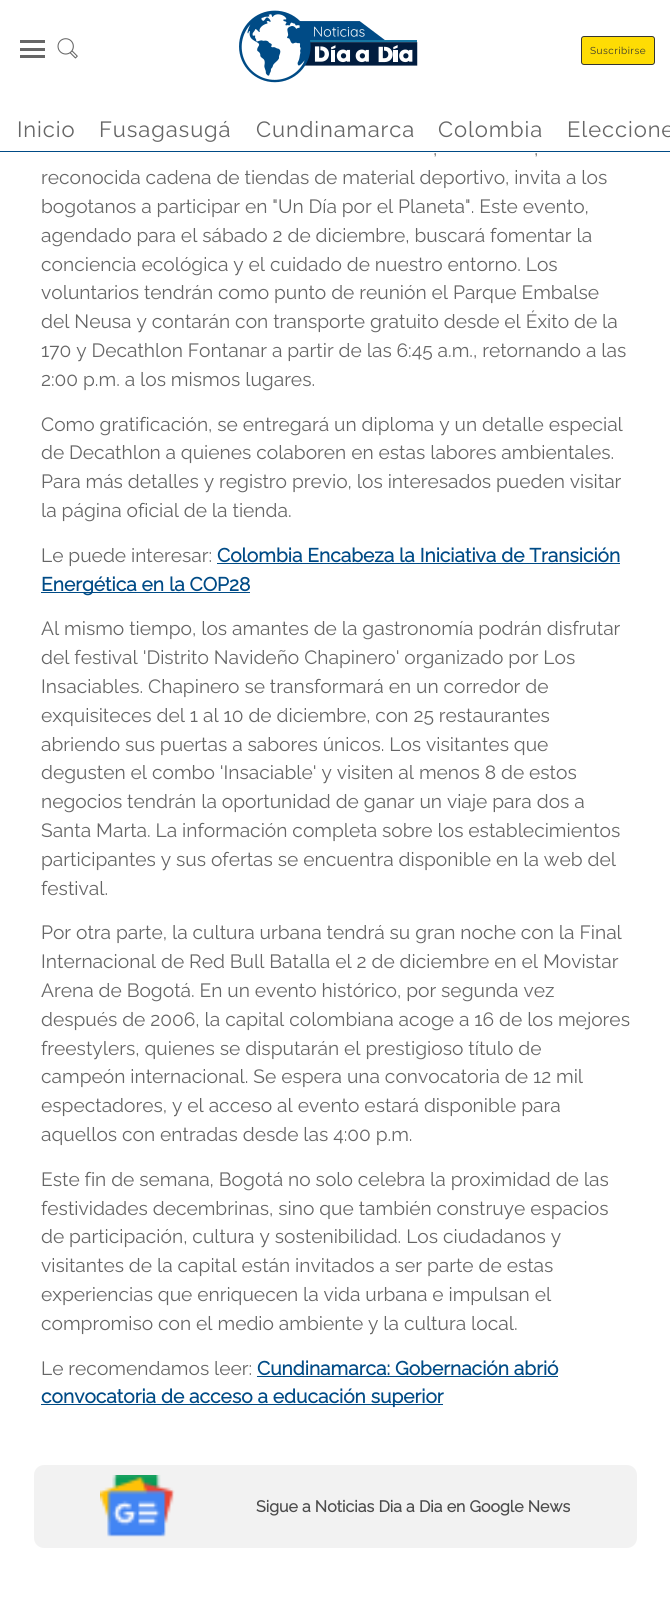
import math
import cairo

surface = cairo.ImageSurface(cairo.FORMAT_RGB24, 670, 1608)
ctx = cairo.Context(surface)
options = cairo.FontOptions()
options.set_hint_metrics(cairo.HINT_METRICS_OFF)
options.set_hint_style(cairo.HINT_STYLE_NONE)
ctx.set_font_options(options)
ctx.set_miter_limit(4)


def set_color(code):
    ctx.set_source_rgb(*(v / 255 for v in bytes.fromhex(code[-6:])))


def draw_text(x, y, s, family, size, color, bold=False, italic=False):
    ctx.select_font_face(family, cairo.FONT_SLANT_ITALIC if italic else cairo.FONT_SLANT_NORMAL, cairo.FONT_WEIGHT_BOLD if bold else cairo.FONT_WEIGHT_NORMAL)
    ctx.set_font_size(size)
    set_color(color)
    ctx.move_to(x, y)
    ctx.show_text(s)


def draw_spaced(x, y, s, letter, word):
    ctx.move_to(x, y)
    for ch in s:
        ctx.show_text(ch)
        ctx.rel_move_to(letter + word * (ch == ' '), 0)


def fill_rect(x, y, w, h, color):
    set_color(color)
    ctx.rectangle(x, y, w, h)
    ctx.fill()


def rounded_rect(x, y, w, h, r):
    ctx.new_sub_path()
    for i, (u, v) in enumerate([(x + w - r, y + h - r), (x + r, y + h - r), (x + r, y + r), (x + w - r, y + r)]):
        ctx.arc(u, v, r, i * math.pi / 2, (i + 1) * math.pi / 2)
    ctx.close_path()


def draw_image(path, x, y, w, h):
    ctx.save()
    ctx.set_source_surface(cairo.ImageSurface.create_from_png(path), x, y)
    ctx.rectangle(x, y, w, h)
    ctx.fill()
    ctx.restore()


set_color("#ffffff")
ctx.paint()
fill_rect(0, 151, 670, 1, "#004b86")
fill_rect(20, 40, 25, 3, "#666666")
fill_rect(20, 48, 25, 3, "#666666")
fill_rect(20, 55, 25, 3, "#666666")
draw_image("assets/img1.png", 57, 38, 21, 21)
draw_image("assets/img2.png", 239, 10, 179, 73)
set_color("#fedc04")
rounded_rect(581.5, 36.5, 73, 28, 2.5)
ctx.fill_preserve()
set_color("#36362f")
ctx.set_line_width(1)
ctx.stroke()
ctx.select_font_face("Raleway")
ctx.set_font_size(10)
draw_spaced(590, 54, "Suscribirse", 0.5, 0)
ctx.set_font_size(22)
set_color("#666666")
draw_spaced(17, 137, "Inicio", 0.9, 0)
draw_spaced(99, 137, "Fusagasugá", 0.9, 0)
draw_spaced(256, 137, "Cundinamarca", 0.9, 0)
draw_spaced(438, 137, "Colombia", 0.9, 0)
draw_spaced(567, 137, "Eleccione", 0.9, 0)
draw_text(433, 155, ",", "Raleway", 19.2, "#666666")
draw_text(534, 155, ",", "Raleway", 19.2, "#666666")
draw_text(41, 184, "reconocida cadena de tiendas de material deportivo, invita a los", "Raleway", 19.2, "#666666")
draw_text(41, 213, "bogotanos a participar en \"Un Día por el Planeta\". Este evento,", "Raleway", 19.2, "#666666")
draw_text(41, 242, "agendado para el sábado 2 de diciembre, buscará fomentar la", "Raleway", 19.2, "#666666")
draw_text(41, 271, "conciencia ecológica y el cuidado de nuestro entorno. Los", "Raleway", 19.2, "#666666")
draw_text(41, 299, "voluntarios tendrán como punto de reunión el Parque Embalse", "Raleway", 19.2, "#666666")
draw_text(41, 328, "del Neusa y contarán con transporte gratuito desde el Éxito de la", "Raleway", 19.2, "#666666")
draw_text(41, 357, "170 y Decathlon Fontanar a partir de las 6:45 a.m., retornando a las", "Raleway", 19.2, "#666666")
draw_text(41, 386, "2:00 p.m. a los mismos lugares.", "Raleway", 19.2, "#666666")
draw_text(41, 431, "Como gratificación, se entregará un diploma y un detalle especial", "Raleway", 19.2, "#666666")
draw_text(41, 459, "de Decathlon a quienes colaboren en estas labores ambientales.", "Raleway", 19.2, "#666666")
draw_text(41, 488, "Para más detalles y registro previo, los interesados pueden visitar", "Raleway", 19.2, "#666666")
draw_text(41, 517, "la página oficial de la tienda.", "Raleway", 19.2, "#666666")
draw_text(41, 562, "Le puede interesar:", "Raleway", 19.2, "#666666")
draw_text(217, 562, "Colombia Encabeza la Iniciativa de Transición", "Raleway", 19.2, "#004b86", bold=True)
fill_rect(217, 563, 403, 1, "#004b86")
fill_rect(41, 592, 209, 1, "#004b86")
draw_text(41, 591, "Energética en la COP28", "Raleway", 19.2, "#004b86", bold=True)
draw_text(41, 635, "Al mismo tiempo, los amantes de la gastronomía podrán disfrutar", "Raleway", 19.2, "#666666")
draw_text(41, 664, "del festival 'Distrito Navideño Chapinero' organizado por Los", "Raleway", 19.2, "#666666")
draw_text(41, 693, "Insaciables. Chapinero se transformará en un corredor de", "Raleway", 19.2, "#666666")
draw_text(41, 722, "exquisiteces del 1 al 10 de diciembre, con 25 restaurantes", "Raleway", 19.2, "#666666")
draw_text(41, 751, "abriendo sus puertas a sabores únicos. Los visitantes que", "Raleway", 19.2, "#666666")
draw_text(41, 779, "degusten el combo 'Insaciable' y visiten al menos 8 de estos", "Raleway", 19.2, "#666666")
draw_text(41, 808, "negocios tendrán la oportunidad de ganar un viaje para dos a", "Raleway", 19.2, "#666666")
draw_text(41, 837, "Santa Marta. La información completa sobre los establecimientos", "Raleway", 19.2, "#666666")
draw_text(41, 866, "participantes y sus ofertas se encuentra disponible en la web del", "Raleway", 19.2, "#666666")
draw_text(41, 895, "festival.", "Raleway", 19.2, "#666666")
draw_text(41, 939, "Por otra parte, la cultura urbana tendrá su gran noche con la Final", "Raleway", 19.2, "#666666")
draw_text(41, 968, "Internacional de Red Bull Batalla el 2 de diciembre en el Movistar", "Raleway", 19.2, "#666666")
draw_text(41, 997, "Arena de Bogotá. En un evento histórico, por segunda vez", "Raleway", 19.2, "#666666")
draw_text(41, 1026, "después de 2006, la capital colombiana acoge a 16 de los mejores", "Raleway", 19.2, "#666666")
draw_text(41, 1055, "freestylers, quienes se disputarán el prestigioso título de", "Raleway", 19.2, "#666666")
draw_text(41, 1083, "campeón internacional. Se espera una convocatoria de 12 mil", "Raleway", 19.2, "#666666")
draw_text(41, 1112, "espectadores, y el acceso al evento estará disponible para", "Raleway", 19.2, "#666666")
draw_text(41, 1141, "aquellos con entradas desde las 4:00 p.m.", "Raleway", 19.2, "#666666")
draw_text(41, 1186, "Este fin de semana, Bogotá no solo celebra la proximidad de las", "Raleway", 19.2, "#666666")
draw_text(41, 1215, "festividades decembrinas, sino que también construye espacios", "Raleway", 19.2, "#666666")
draw_text(41, 1243, "de participación, cultura y sostenibilidad. Los ciudadanos y", "Raleway", 19.2, "#666666")
draw_text(41, 1272, "visitantes de la capital están invitados a ser parte de estas", "Raleway", 19.2, "#666666")
draw_text(41, 1301, "experiencias que enriquecen la vida urbana e impulsan el", "Raleway", 19.2, "#666666")
draw_text(41, 1330, "compromiso con el medio ambiente y la cultura local.", "Raleway", 19.2, "#666666")
draw_text(41, 1375, "Le recomendamos leer:", "Raleway", 19.2, "#666666")
draw_text(257, 1375, "Cundinamarca: Gobernación abrió", "Raleway", 19.2, "#004b86", bold=True)
fill_rect(257, 1376, 301, 1, "#004b86")
fill_rect(41, 1404, 402, 1, "#004b86")
draw_text(41, 1403, "convocatoria de acceso a educación superior", "Raleway", 19.2, "#004b86", bold=True)
set_color("#f2f2f2")
rounded_rect(34, 1465, 603, 83, 10)
ctx.fill()
draw_image("assets/img3.png", 100, 1475, 75, 62)
draw_text(256, 1512, "Sigue a Noticias Dia a Dia en Google News", "Raleway", 16, "#4c4c4c", bold=True)
surface.write_to_png("output.png")
